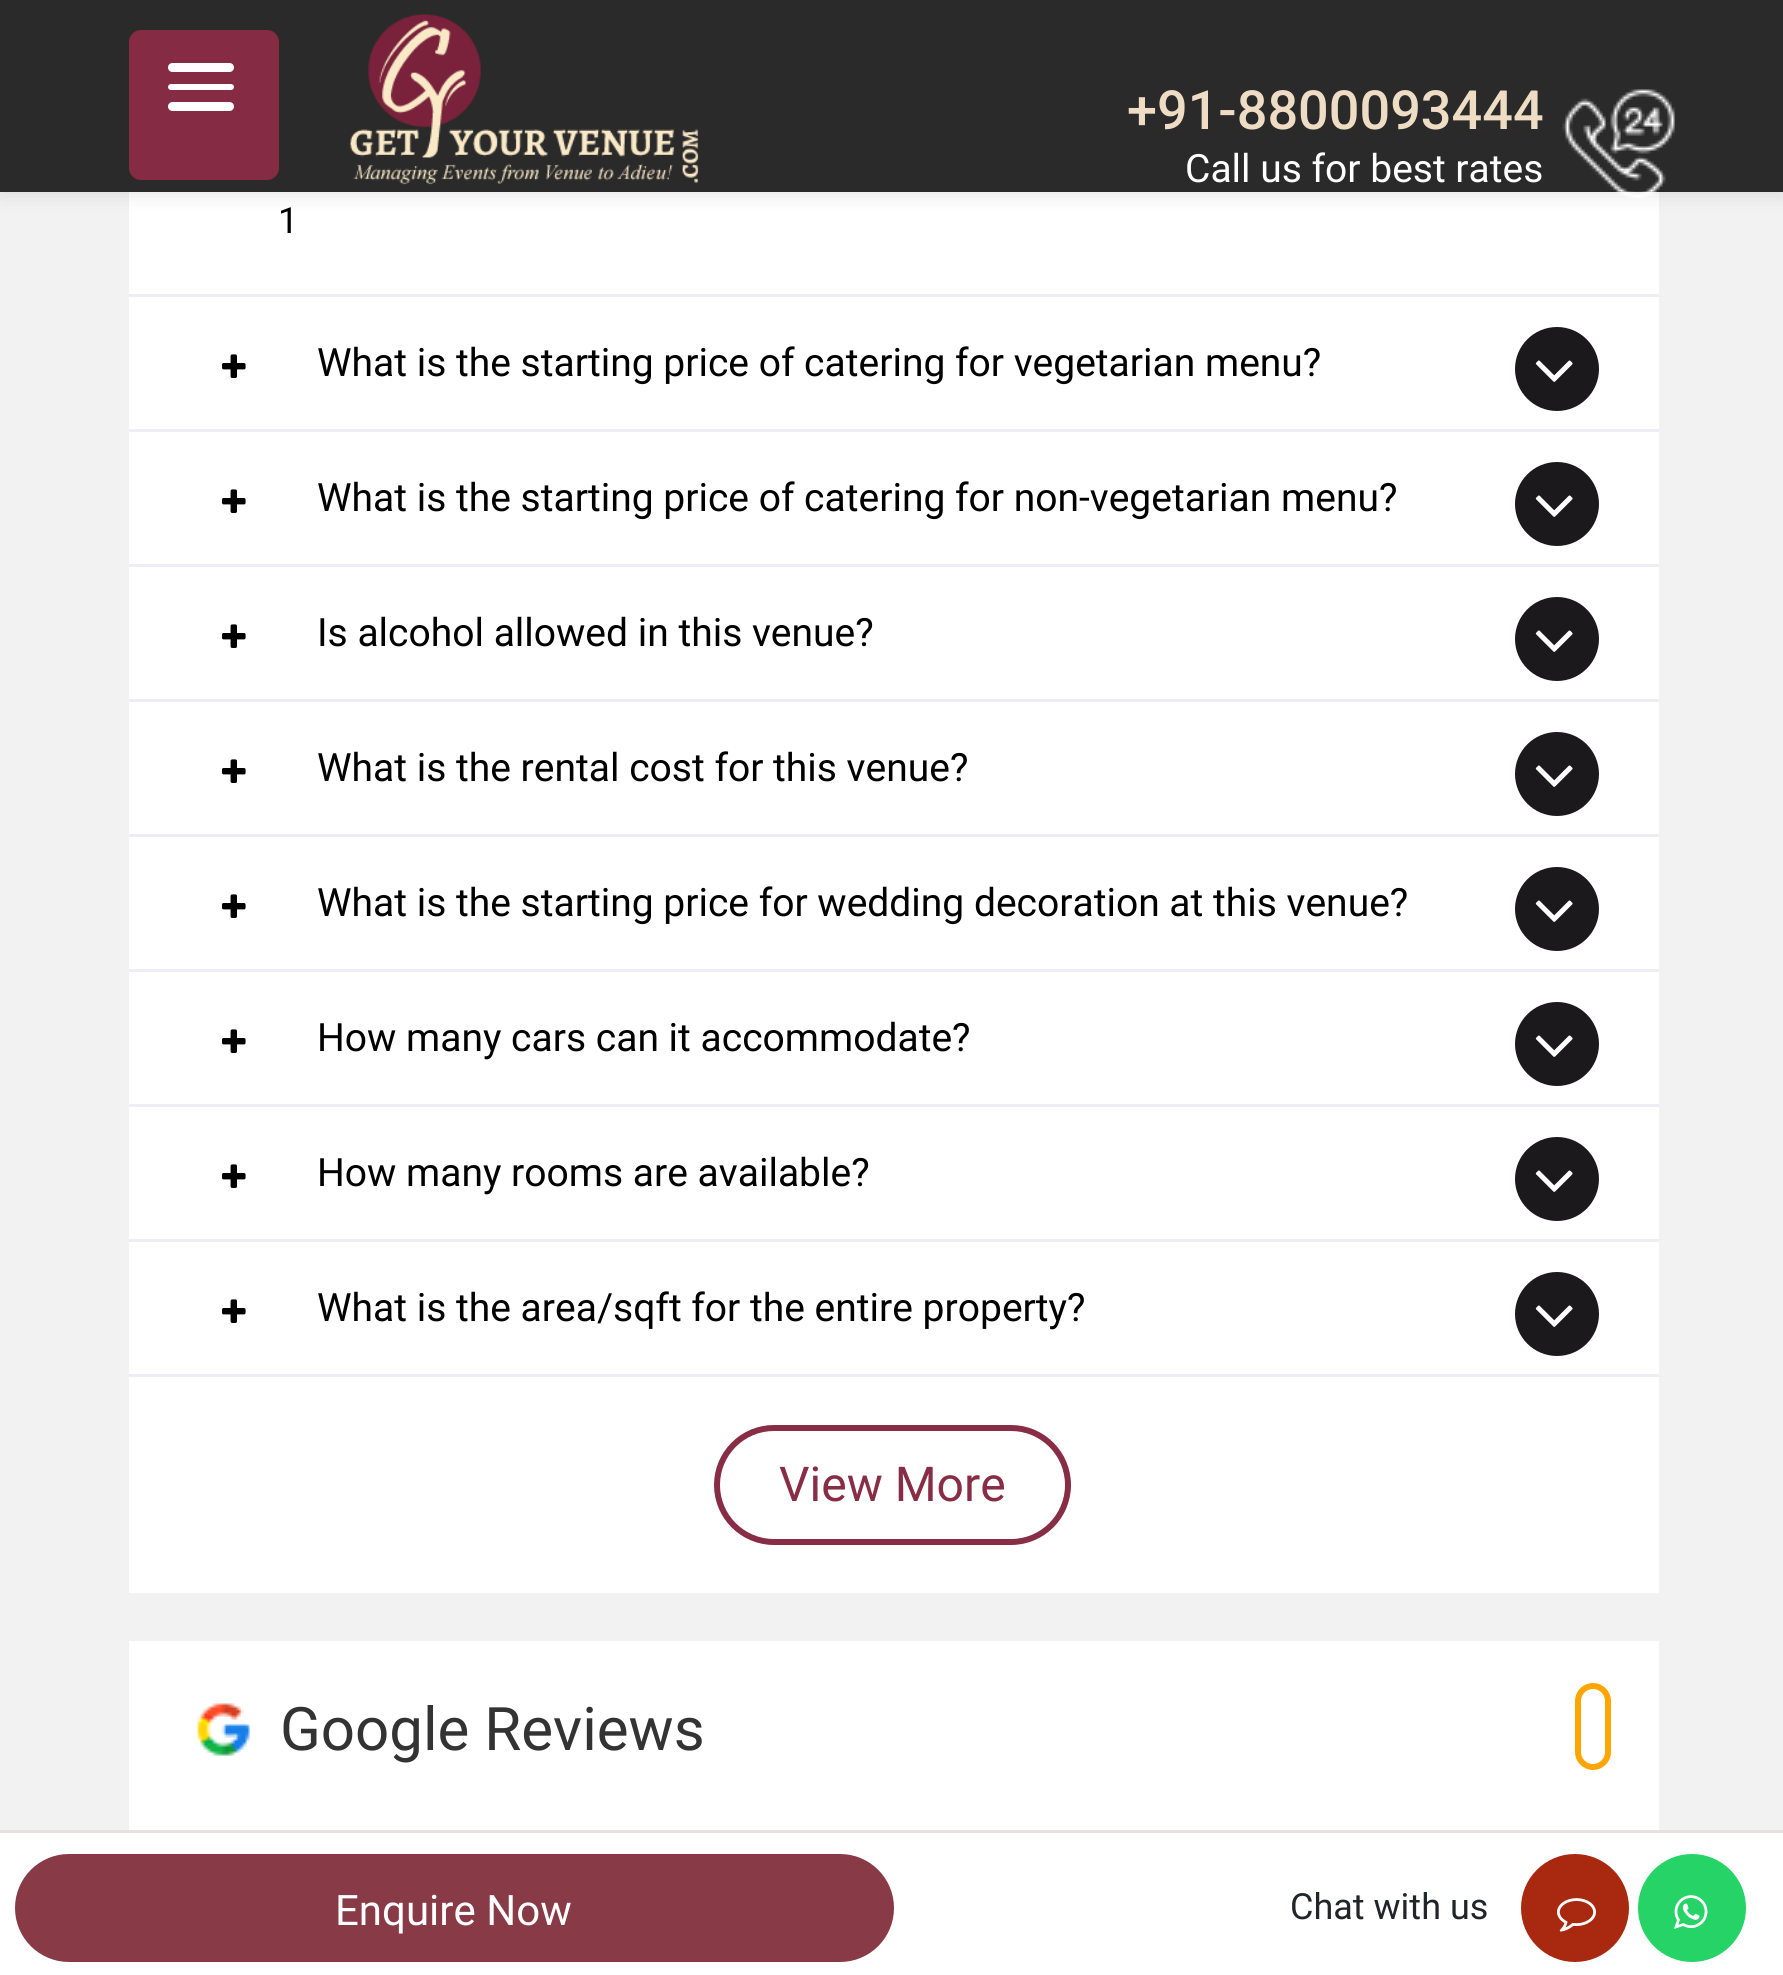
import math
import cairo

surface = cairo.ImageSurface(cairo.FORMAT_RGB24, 1783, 1975)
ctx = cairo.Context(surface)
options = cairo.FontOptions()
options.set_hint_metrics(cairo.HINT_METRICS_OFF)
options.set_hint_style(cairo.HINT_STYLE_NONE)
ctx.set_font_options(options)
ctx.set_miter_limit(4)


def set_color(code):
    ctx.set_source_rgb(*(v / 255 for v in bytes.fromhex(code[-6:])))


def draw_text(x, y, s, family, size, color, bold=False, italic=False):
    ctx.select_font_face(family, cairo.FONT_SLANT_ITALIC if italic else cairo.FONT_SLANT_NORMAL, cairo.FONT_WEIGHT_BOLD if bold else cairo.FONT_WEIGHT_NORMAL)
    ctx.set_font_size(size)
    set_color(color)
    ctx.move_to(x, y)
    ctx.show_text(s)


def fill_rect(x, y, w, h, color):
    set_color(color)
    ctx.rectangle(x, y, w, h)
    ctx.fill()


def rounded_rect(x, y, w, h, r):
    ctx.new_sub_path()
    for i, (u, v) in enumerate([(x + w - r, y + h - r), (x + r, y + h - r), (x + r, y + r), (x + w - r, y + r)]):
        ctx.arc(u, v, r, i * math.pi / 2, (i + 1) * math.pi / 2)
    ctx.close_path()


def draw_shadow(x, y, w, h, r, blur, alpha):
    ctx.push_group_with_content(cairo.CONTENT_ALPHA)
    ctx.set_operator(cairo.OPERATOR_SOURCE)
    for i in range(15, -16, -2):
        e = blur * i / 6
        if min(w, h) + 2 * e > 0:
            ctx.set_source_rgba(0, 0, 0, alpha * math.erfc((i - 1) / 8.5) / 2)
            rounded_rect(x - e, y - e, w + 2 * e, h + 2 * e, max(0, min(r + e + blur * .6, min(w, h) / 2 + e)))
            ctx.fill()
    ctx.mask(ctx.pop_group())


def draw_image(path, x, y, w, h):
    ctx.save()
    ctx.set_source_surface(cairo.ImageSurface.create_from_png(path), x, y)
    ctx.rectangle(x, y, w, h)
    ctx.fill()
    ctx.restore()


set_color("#f2f2f2")
ctx.paint()
fill_rect(129, 192, 1530, 1401, "#ffffff")
set_color("#000000")
draw_shadow(0, 0, 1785, 192, 0, 12, 0.12)
fill_rect(0, 0, 1783, 192, "#2a2a2a")
set_color("#852b43")
rounded_rect(129, 30, 150, 150, 12)
ctx.fill()
set_color("#ffffff")
rounded_rect(168, 102, 66, 9, 4.5)
ctx.fill()
rounded_rect(168, 63, 66, 9, 4.5)
ctx.fill()
rounded_rect(168, 84, 66, 6, 3)
ctx.fill()
draw_image("assets/img1.png", 350, 14, 349, 171)
draw_text(1127, 129, "+91-8800093444", "Roboto Medium", 54, "#eeddc4")
draw_image("assets/img2.png", 1562, 89, 113, 109)
draw_text(1185, 182, "Call us for best rates", "Roboto", 39, "#ffffff")
fill_rect(129, 294, 1530, 3, "#eeecf4")
draw_text(278, 233, "1", "Roboto", 36, "#000000")
fill_rect(129, 429, 1530, 3, "#eeecf4")
draw_image("assets/img3.png", 222, 354, 24, 24)
draw_text(317, 376, "What is the starting price of catering for vegetarian menu?", "Roboto", 39, "#000000")
set_color("#1b191b")
ctx.new_path()
ctx.arc(1557, 369, 42, 0, 2 * math.pi)
ctx.fill()
draw_image("assets/img4.png", 1535, 360, 38, 22)
fill_rect(129, 564, 1530, 3, "#eeecf4")
draw_image("assets/img3.png", 222, 489, 24, 24)
draw_text(317, 511, "What is the starting price of catering for non-vegetarian menu?", "Roboto", 39, "#000000")
set_color("#1b191b")
ctx.new_path()
ctx.arc(1557, 504, 42, 0, 2 * math.pi)
ctx.fill()
draw_image("assets/img4.png", 1535, 495, 38, 22)
fill_rect(129, 699, 1530, 3, "#eeecf4")
draw_image("assets/img3.png", 222, 624, 24, 24)
draw_text(317, 646, "Is alcohol allowed in this venue?", "Roboto", 39, "#000000")
set_color("#1b191b")
ctx.new_path()
ctx.arc(1557, 639, 42, 0, 2 * math.pi)
ctx.fill()
draw_image("assets/img4.png", 1535, 630, 38, 22)
fill_rect(129, 834, 1530, 3, "#eeecf4")
draw_image("assets/img3.png", 222, 759, 24, 24)
draw_text(317, 781, "What is the rental cost for this venue?", "Roboto", 39, "#000000")
set_color("#1b191b")
ctx.new_path()
ctx.arc(1557, 774, 42, 0, 2 * math.pi)
ctx.fill()
draw_image("assets/img4.png", 1535, 765, 38, 22)
fill_rect(129, 969, 1530, 3, "#eeecf4")
draw_image("assets/img3.png", 222, 894, 24, 24)
draw_text(317, 916, "What is the starting price for wedding decoration at this venue?", "Roboto", 39, "#000000")
set_color("#1b191b")
ctx.new_path()
ctx.arc(1557, 909, 42, 0, 2 * math.pi)
ctx.fill()
draw_image("assets/img4.png", 1535, 900, 38, 22)
fill_rect(129, 1104, 1530, 3, "#eeecf4")
draw_image("assets/img3.png", 222, 1029, 24, 24)
draw_text(317, 1051, "How many cars can it accommodate?", "Roboto", 39, "#000000")
set_color("#1b191b")
ctx.new_path()
ctx.arc(1557, 1044, 42, 0, 2 * math.pi)
ctx.fill()
draw_image("assets/img4.png", 1535, 1035, 38, 22)
fill_rect(129, 1239, 1530, 3, "#eeecf4")
draw_image("assets/img3.png", 222, 1164, 24, 24)
draw_text(317, 1186, "How many rooms are available?", "Roboto", 39, "#000000")
set_color("#1b191b")
ctx.new_path()
ctx.arc(1557, 1179, 42, 0, 2 * math.pi)
ctx.fill()
draw_image("assets/img4.png", 1535, 1170, 38, 22)
fill_rect(129, 1374, 1530, 3, "#eeecf4")
draw_image("assets/img3.png", 222, 1299, 24, 24)
draw_text(317, 1321, "What is the area/sqft for the entire property?", "Roboto", 39, "#000000")
set_color("#1b191b")
ctx.new_path()
ctx.arc(1557, 1314, 42, 0, 2 * math.pi)
ctx.fill()
draw_image("assets/img4.png", 1535, 1305, 38, 22)
rounded_rect(717, 1428, 351, 114, 57)
set_color("#882d46")
ctx.set_line_width(6)
ctx.stroke()
draw_text(779, 1501, "View More", "Roboto", 48, "#882d46")
fill_rect(129, 1641, 1530, 189, "#ffffff")
draw_image("assets/img5.png", 197, 1703, 53, 53)
draw_text(280, 1750, "Google Reviews", "Roboto", 60, "#333333")
rounded_rect(1578, 1686, 30, 81, 15)
set_color("#ffa500")
ctx.stroke()
fill_rect(0, 1833, 1783, 142, "#ffffff")
fill_rect(0, 1830, 1783, 3, "#e8dfdf")
set_color("#883a46")
rounded_rect(15, 1854, 879, 108, 54)
ctx.fill()
draw_text(335, 1925, "Enquire Now", "Roboto", 42, "#ffffff")
draw_text(1290, 1919, "Chat with us", "Roboto", 36, "#212529")
set_color("#a8290f")
ctx.new_path()
ctx.arc(1575, 1908, 54, 0, 2 * math.pi)
ctx.fill()
draw_image("assets/img6.png", 1557, 1898, 39, 34)
set_color("#25d366")
ctx.arc(1692, 1908, 54, 0, 2 * math.pi)
ctx.fill()
draw_image("assets/img7.png", 1674, 1895, 34, 34)
surface.write_to_png("output.png")
